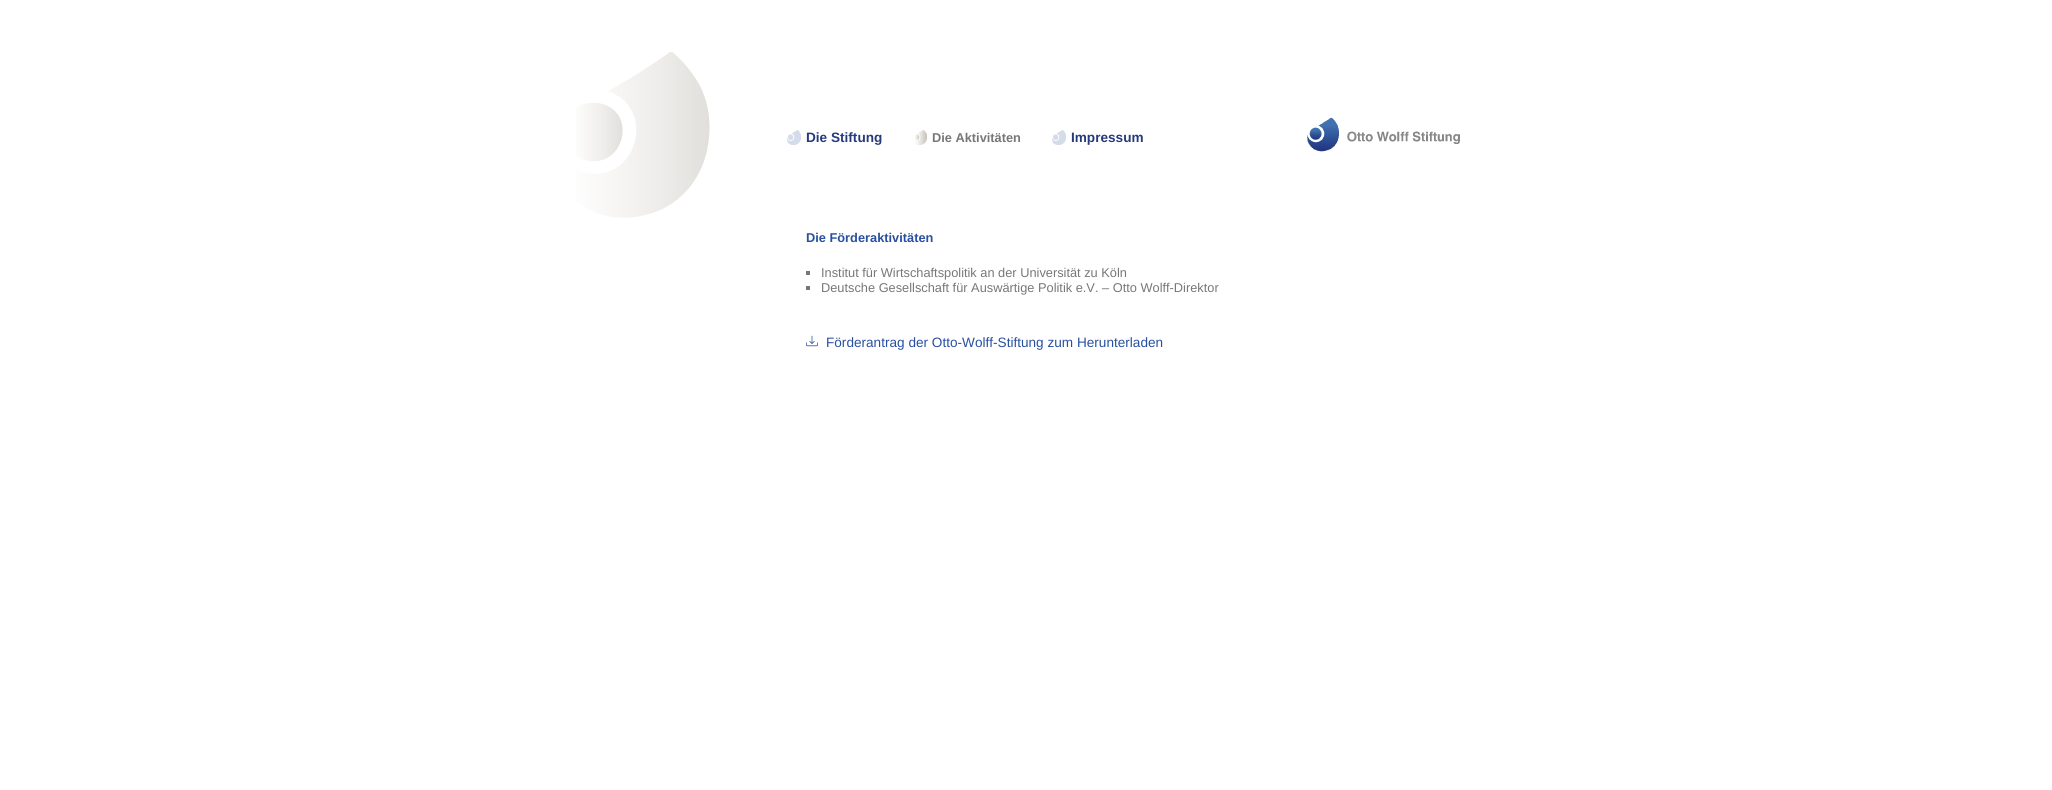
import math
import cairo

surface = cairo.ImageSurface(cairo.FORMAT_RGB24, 2052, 790)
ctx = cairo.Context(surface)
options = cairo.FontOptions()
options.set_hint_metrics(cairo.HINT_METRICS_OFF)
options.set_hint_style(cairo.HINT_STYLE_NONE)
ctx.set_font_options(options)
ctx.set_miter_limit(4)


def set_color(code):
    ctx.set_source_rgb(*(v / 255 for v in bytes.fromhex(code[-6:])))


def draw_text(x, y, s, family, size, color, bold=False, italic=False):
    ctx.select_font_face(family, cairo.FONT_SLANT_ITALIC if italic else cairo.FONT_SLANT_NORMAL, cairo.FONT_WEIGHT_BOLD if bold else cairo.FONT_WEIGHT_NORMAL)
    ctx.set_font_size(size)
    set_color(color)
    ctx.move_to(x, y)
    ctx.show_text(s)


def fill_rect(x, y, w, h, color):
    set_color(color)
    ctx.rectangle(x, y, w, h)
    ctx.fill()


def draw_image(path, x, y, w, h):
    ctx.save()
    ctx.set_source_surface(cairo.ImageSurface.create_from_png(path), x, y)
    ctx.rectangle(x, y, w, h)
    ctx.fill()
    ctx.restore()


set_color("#ffffff")
ctx.paint()
draw_image("assets/img1.png", 576, 52, 134, 166)
draw_image("assets/img2.png", 787, 130, 14, 15)
draw_text(806, 142, "Die Stiftung", "Liberation Sans", 13.6, "#263a7e", bold=True)
draw_image("assets/img3.png", 915, 130, 12, 15)
draw_text(932, 142, "Die Aktivitäten", "Liberation Sans", 12.8, "#767777", bold=True)
draw_image("assets/img2.png", 1052, 130, 14, 15)
draw_text(1071, 142, "Impressum", "Liberation Sans", 13.6, "#263a7e", bold=True)
draw_text(806, 242, "Die Förderaktivitäten", "Liberation Sans", 12.8, "#294fa1", bold=True)
fill_rect(806, 271, 4, 4, "#767777")
draw_text(821, 277, "Institut für Wirtschaftspolitik an der Universität zu Köln", "Liberation Sans", 12.8, "#767777")
fill_rect(806, 286, 4, 4, "#767777")
draw_text(821, 292, "Deutsche Gesellschaft für Auswärtige Politik e.V. – Otto Wolff-Direktor", "Liberation Sans", 12.8, "#767777")
draw_image("assets/img4.png", 806, 335, 12, 12)
draw_text(826, 347, "Förderantrag der Otto-Wolff-Stiftung zum Herunterladen", "Liberation Sans", 13.6, "#294fa1")
draw_image("assets/img5.png", 1307, 117, 153, 35)
surface.write_to_png("output.png")
